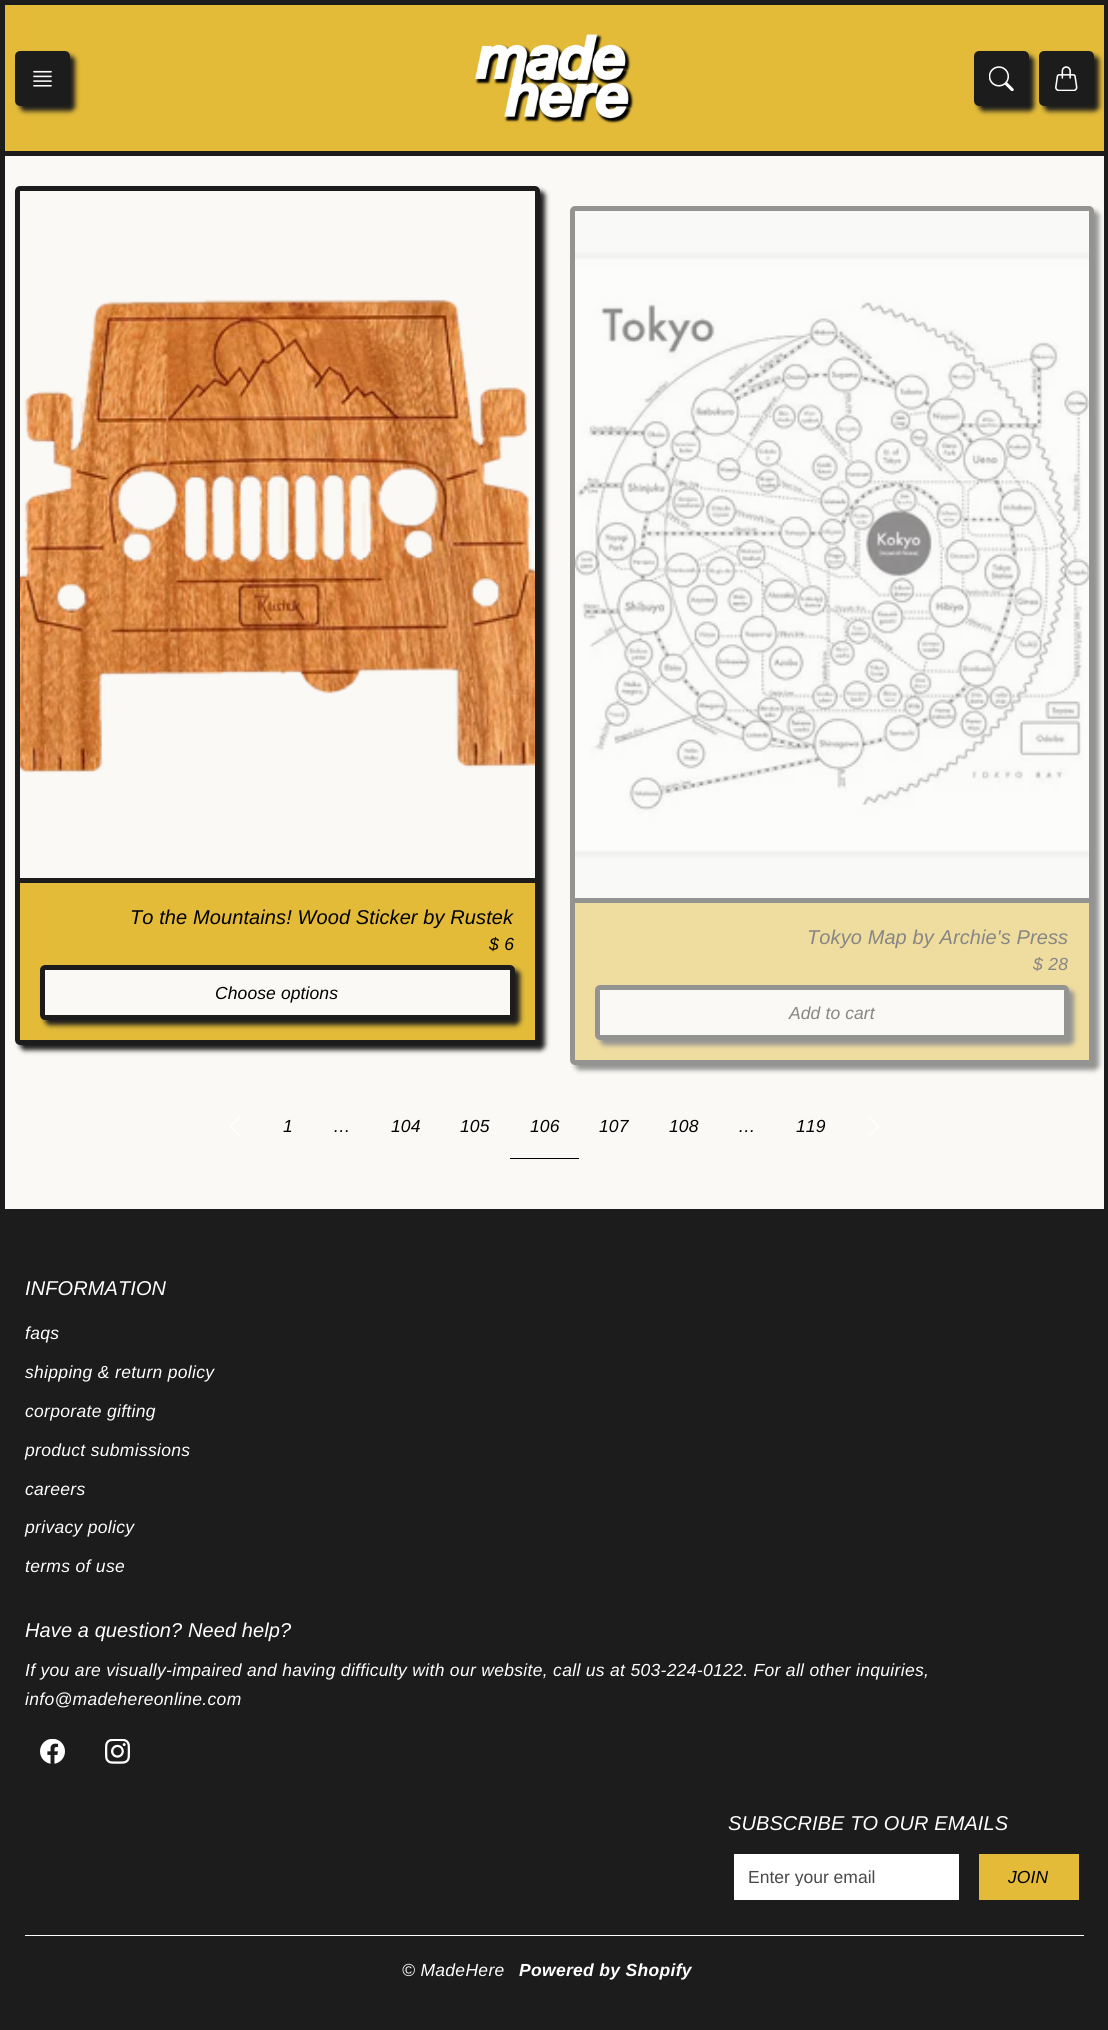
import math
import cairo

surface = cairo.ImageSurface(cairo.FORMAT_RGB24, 1108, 2030)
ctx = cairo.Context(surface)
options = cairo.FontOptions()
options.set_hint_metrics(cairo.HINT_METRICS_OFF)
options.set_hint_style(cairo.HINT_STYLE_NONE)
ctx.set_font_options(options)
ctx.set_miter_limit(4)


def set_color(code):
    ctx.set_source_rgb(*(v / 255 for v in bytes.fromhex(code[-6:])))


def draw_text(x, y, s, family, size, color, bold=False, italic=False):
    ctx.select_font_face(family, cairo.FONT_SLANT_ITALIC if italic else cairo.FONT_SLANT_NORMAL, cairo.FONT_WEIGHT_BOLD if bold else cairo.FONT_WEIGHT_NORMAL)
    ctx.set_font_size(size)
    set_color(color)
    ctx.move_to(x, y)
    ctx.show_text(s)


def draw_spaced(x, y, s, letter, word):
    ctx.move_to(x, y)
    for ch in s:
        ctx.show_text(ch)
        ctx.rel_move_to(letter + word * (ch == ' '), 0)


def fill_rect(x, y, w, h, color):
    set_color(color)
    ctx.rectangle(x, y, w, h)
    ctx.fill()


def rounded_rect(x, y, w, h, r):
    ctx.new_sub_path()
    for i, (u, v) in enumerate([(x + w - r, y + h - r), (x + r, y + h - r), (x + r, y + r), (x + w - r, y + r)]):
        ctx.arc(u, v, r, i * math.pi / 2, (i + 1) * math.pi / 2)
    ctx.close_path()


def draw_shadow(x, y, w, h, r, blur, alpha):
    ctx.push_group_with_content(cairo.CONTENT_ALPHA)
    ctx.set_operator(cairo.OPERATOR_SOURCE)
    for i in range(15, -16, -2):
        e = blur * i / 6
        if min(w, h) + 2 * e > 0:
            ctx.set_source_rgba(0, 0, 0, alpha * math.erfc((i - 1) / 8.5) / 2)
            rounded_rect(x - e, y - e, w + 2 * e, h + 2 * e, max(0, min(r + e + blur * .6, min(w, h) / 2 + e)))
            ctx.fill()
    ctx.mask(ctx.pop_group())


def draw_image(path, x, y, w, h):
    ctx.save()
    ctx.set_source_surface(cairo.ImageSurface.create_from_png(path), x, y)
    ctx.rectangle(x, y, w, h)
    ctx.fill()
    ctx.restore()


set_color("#faf9f6")
ctx.paint()
ctx.rectangle(2.5, -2.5, 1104, 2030)
set_color("#1c1c1c")
ctx.set_line_width(5)
ctx.stroke()
fill_rect(5, 0, 1099, 5, "#1c1c1c")
fill_rect(5, 5, 1099, 146, "#e3bb39")
fill_rect(5, 151, 1099, 5, "#1c1c1c")
set_color("#1c1c1c")
draw_shadow(20, 56, 55, 55, 5, 2.5, 1)
set_color("#1c1c1c")
rounded_rect(17.5, 53.5, 50, 50, 2.5)
ctx.fill_preserve()
ctx.stroke()
draw_image("assets/img1.png", 33, 70, 19, 17)
draw_image("assets/img2.png", 475, 34, 159, 90)
set_color("#1c1c1c")
draw_shadow(979, 56, 55, 55, 5, 2.5, 1)
set_color("#1c1c1c")
rounded_rect(976.5, 53.5, 50, 50, 2.5)
ctx.fill_preserve()
ctx.stroke()
draw_image("assets/img3.png", 989, 66, 25, 25)
set_color("#1c1c1c")
draw_shadow(1044, 56, 55, 55, 5, 2.5, 1)
set_color("#1c1c1c")
rounded_rect(1041.5, 53.5, 50, 50, 2.5)
ctx.fill_preserve()
ctx.stroke()
draw_image("assets/img4.png", 1055, 66, 23, 25)
fill_rect(5, 1209, 1099, 816, "#1c1c1c")
set_color("#1c1c1c")
draw_shadow(20, 191, 525, 859, 5, 2.5, 1)
set_color("#e3bb39")
rounded_rect(17.5, 188.5, 520, 854, 2.5)
ctx.fill_preserve()
set_color("#1c1c1c")
ctx.stroke()
fill_rect(20, 878, 515, 5, "#1c1c1c")
fill_rect(20, 191, 515, 687, "#faf9f6")
draw_image("assets/img5.png", 20, 299, 515, 474)
ctx.select_font_face("Liberation Sans", cairo.FONT_SLANT_ITALIC)
ctx.set_font_size(20)
set_color("#000000")
draw_spaced(130, 924, "To the Mountains! Wood Sticker by Rustek", 0.1, 0)
ctx.set_font_size(17.5)
draw_spaced(489, 950, "$ 6", 0.31, 0)
set_color("#1c1c1c")
draw_shadow(45, 970, 475, 55, 5, 2.5, 1)
set_color("#faf9f6")
rounded_rect(42.5, 967.5, 470, 50, 2.5)
ctx.fill_preserve()
set_color("#1c1c1c")
ctx.stroke()
set_color("#000000")
draw_spaced(215, 999, "Choose options", 0.1, 0)
set_color("#939391")
draw_shadow(575, 211, 524, 859, 5, 2.5, 1)
set_color("#efdc9f")
rounded_rect(572.5, 208.5, 519, 854, 2.5)
ctx.fill_preserve()
set_color("#939391")
ctx.stroke()
fill_rect(575, 898, 514, 5, "#939391")
fill_rect(575, 211, 514, 687, "#f9f9f7")
draw_image("assets/img6.png", 575, 252, 514, 606)
ctx.set_font_size(20)
set_color("#868684")
draw_spaced(807, 944, "Tokyo Map by Archie's Press", 0.1, 0)
ctx.set_font_size(17.5)
draw_spaced(1033, 970, "$ 28", 0.31, 0)
set_color("#939391")
draw_shadow(600, 990, 474, 55, 5, 2.5, 1)
set_color("#faf9f6")
rounded_rect(597.5, 987.5, 469, 50, 2.5)
ctx.fill_preserve()
set_color("#939391")
ctx.stroke()
set_color("#868684")
draw_spaced(789, 1019, "Add to cart", 0.1, 0)
draw_image("assets/img7.png", 230, 1116, 10, 20)
set_color("#000000")
draw_spaced(283, 1132, "1", 0.1, 0)
draw_spaced(333, 1132, "…", 0.1, 0)
draw_spaced(391, 1132, "104", 0.1, 0)
draw_spaced(460, 1132, "105", 0.1, 0)
fill_rect(510, 1158, 69, 1, "#000000")
draw_spaced(530, 1132, "106", 0.1, 0)
draw_spaced(599, 1132, "107", 0.1, 0)
draw_spaced(669, 1132, "108", 0.1, 0)
draw_spaced(738, 1132, "…", 0.1, 0)
draw_spaced(796, 1132, "119", 0.1, 0)
draw_image("assets/img8.png", 868, 1116, 11, 20)
ctx.set_font_size(20)
set_color("#ffffff")
draw_spaced(25, 1295, "INFORMATION", 0.1, 0)
ctx.set_font_size(17.5)
draw_spaced(25, 1339, "faqs", 0.31, 0)
draw_spaced(25, 1378, "shipping & return policy", 0.31, 0)
draw_spaced(25, 1417, "corporate gifting", 0.31, 0)
draw_spaced(25, 1456, "product submissions", 0.31, 0)
draw_spaced(25, 1495, "careers", 0.31, 0)
draw_spaced(25, 1533, "privacy policy", 0.31, 0)
draw_spaced(25, 1572, "terms of use", 0.31, 0)
ctx.set_font_size(20)
draw_spaced(25, 1637, "Have a question? Need help?", 0.1, 0)
ctx.set_font_size(17.5)
draw_spaced(25, 1676, "If you are visually-impaired and having difficulty with our website, call us at 503-224-0122. For all other inquiries,", 0.31, 0)
draw_spaced(25, 1705, "info@madehereonline.com", 0.31, 0)
draw_image("assets/img9.png", 40, 1739, 25, 25)
draw_image("assets/img10.png", 105, 1739, 25, 25)
ctx.set_font_size(20)
draw_spaced(728, 1830, "SUBSCRIBE TO OUR EMAILS", 0.1, 0)
fill_rect(734, 1854, 225, 46, "#ffffff")
ctx.save()
ctx.rectangle(749, 1866, 195, 20)
ctx.clip()
draw_text(748, 1883, "Enter your email", "Liberation Sans", 17.5, "#494949")
ctx.restore()
set_color("#e3bb39")
rounded_rect(976.5, 1851.5, 105, 51, 2.5)
ctx.fill_preserve()
set_color("#1c1c1c")
ctx.stroke()
ctx.set_font_size(17.5)
set_color("#000000")
draw_spaced(1008, 1883, "JOIN", 0.1, 0)
fill_rect(25, 1935, 1059, 1, "#ffffff")
draw_spaced(402, 1976, "© MadeHere", 0.31, 0)
ctx.select_font_face("Liberation Sans", cairo.FONT_SLANT_ITALIC, cairo.FONT_WEIGHT_BOLD)
draw_spaced(519, 1976, "Powered by Shopify", 0.31, 0)
surface.write_to_png("output.png")
